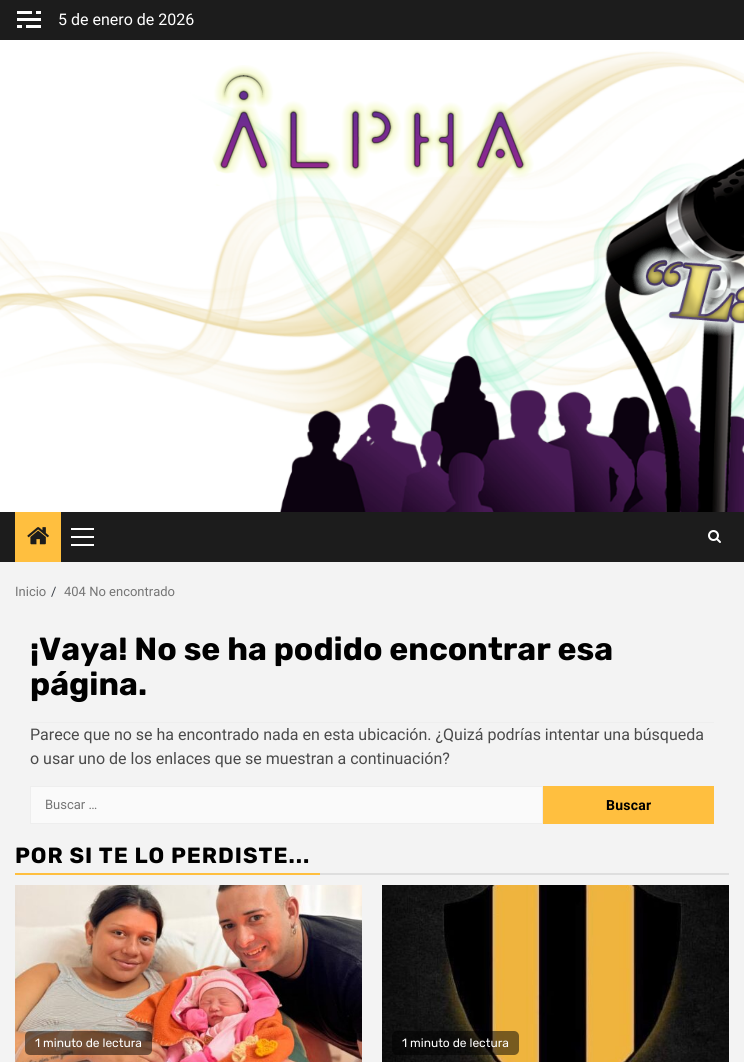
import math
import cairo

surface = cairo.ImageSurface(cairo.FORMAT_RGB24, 744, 1062)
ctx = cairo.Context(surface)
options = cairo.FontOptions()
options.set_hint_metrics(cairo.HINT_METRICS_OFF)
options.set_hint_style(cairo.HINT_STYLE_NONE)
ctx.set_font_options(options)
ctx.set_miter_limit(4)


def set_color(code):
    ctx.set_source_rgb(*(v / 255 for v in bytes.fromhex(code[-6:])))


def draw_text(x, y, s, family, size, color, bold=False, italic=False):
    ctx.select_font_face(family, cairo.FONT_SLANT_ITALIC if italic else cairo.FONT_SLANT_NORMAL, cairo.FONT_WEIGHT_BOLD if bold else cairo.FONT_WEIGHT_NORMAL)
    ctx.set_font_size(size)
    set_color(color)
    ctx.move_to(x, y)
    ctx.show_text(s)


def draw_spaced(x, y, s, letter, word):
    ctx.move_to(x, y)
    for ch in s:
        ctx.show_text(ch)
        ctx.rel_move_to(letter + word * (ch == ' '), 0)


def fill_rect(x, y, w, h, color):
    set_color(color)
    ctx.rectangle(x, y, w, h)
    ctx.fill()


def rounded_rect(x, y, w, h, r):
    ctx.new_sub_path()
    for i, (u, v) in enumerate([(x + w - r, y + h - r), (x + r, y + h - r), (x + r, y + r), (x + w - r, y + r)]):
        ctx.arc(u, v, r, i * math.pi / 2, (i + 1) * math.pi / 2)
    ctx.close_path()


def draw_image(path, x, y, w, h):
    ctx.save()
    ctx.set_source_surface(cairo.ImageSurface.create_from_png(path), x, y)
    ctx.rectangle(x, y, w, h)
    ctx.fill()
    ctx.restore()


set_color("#f3f3f3")
ctx.paint()
fill_rect(0, 0, 744, 40, "#1c1c1c")
fill_rect(36, 11, 5, 3, "#ffffff")
fill_rect(17, 11, 15, 3, "#ffffff")
fill_rect(17, 18, 24, 3, "#ffffff")
fill_rect(26, 25, 15, 3, "#ffffff")
fill_rect(17, 25, 5, 3, "#ffffff")
draw_text(58, 25, "5 de enero de 2026", "Roboto", 16, "#ffffff")
draw_image("assets/img1.png", 0, 40, 744, 472)
draw_image("assets/img2.png", 212, 65, 322, 121)
fill_rect(0, 512, 744, 50, "#1c1c1c")
fill_rect(15, 512, 46, 50, "#ffbf3f")
draw_image("assets/img3.png", 27, 527, 22, 18)
fill_rect(71, 536, 23, 2, "#ffffff")
fill_rect(71, 528, 23, 2, "#ffffff")
fill_rect(71, 544, 23, 2, "#ffffff")
draw_image("assets/img4.png", 708, 530, 13, 13)
draw_text(15, 596, "Inicio", "Roboto", 13, "#757575")
draw_text(51, 596, "/", "Roboto", 13, "#393e46")
draw_text(64, 596, "404 No encontrado", "Roboto", 13, "#757575")
fill_rect(30, 722, 684, 1, "#eeeeee")
draw_text(30, 660, "¡Vaya! No se ha podido encontrar esa", "Rubik", 32, "#000000", bold=True)
draw_text(30, 695, "página.", "Rubik", 32, "#000000", bold=True)
draw_text(30, 740, "Parece que no se ha encontrado nada en esta ubicación. ¿Quizá podrías intentar una búsqueda", "Roboto", 16, "#4a4a4a")
draw_text(30, 764, "o usar uno de los enlaces que se muestran a continuación?", "Roboto", 16, "#4a4a4a")
set_color("#fafafa")
ctx.rectangle(30.5, 786.5, 512, 37)
ctx.fill_preserve()
set_color("#eeeeee")
ctx.set_line_width(1)
ctx.stroke()
draw_text(45, 809, "Buscar …", "Roboto", 13, "#757575")
fill_rect(543, 786, 171, 38, "#ffbf3f")
ctx.select_font_face("Roboto", cairo.FONT_SLANT_NORMAL, cairo.FONT_WEIGHT_BOLD)
ctx.set_font_size(14)
set_color("#000000")
draw_spaced(606, 810, "Buscar", 0.25, 0)
fill_rect(15, 873, 305, 2, "#ffbf3f")
ctx.select_font_face("Rubik", cairo.FONT_SLANT_NORMAL, cairo.FONT_WEIGHT_BOLD)
ctx.set_font_size(22)
set_color("#000000")
draw_spaced(15, 863, "POR SI TE LO PERDISTE...", 1, 0)
fill_rect(320, 873, 409, 2, "#dedede")
draw_image("assets/img5.png", 15, 885, 347, 177)
ctx.set_source_rgba(0, 0, 0, 0.5)
rounded_rect(25, 1031, 127, 24, 5)
ctx.fill()
draw_text(35, 1047, "1 minuto de lectura", "Rubik", 12, "#ffffff")
draw_image("assets/img6.png", 382, 885, 347, 177)
ctx.set_source_rgba(0, 0, 0, 0.5)
rounded_rect(392, 1031, 127, 24, 5)
ctx.fill()
draw_text(402, 1047, "1 minuto de lectura", "Rubik", 12, "#ffffff")
surface.write_to_png("output.png")
